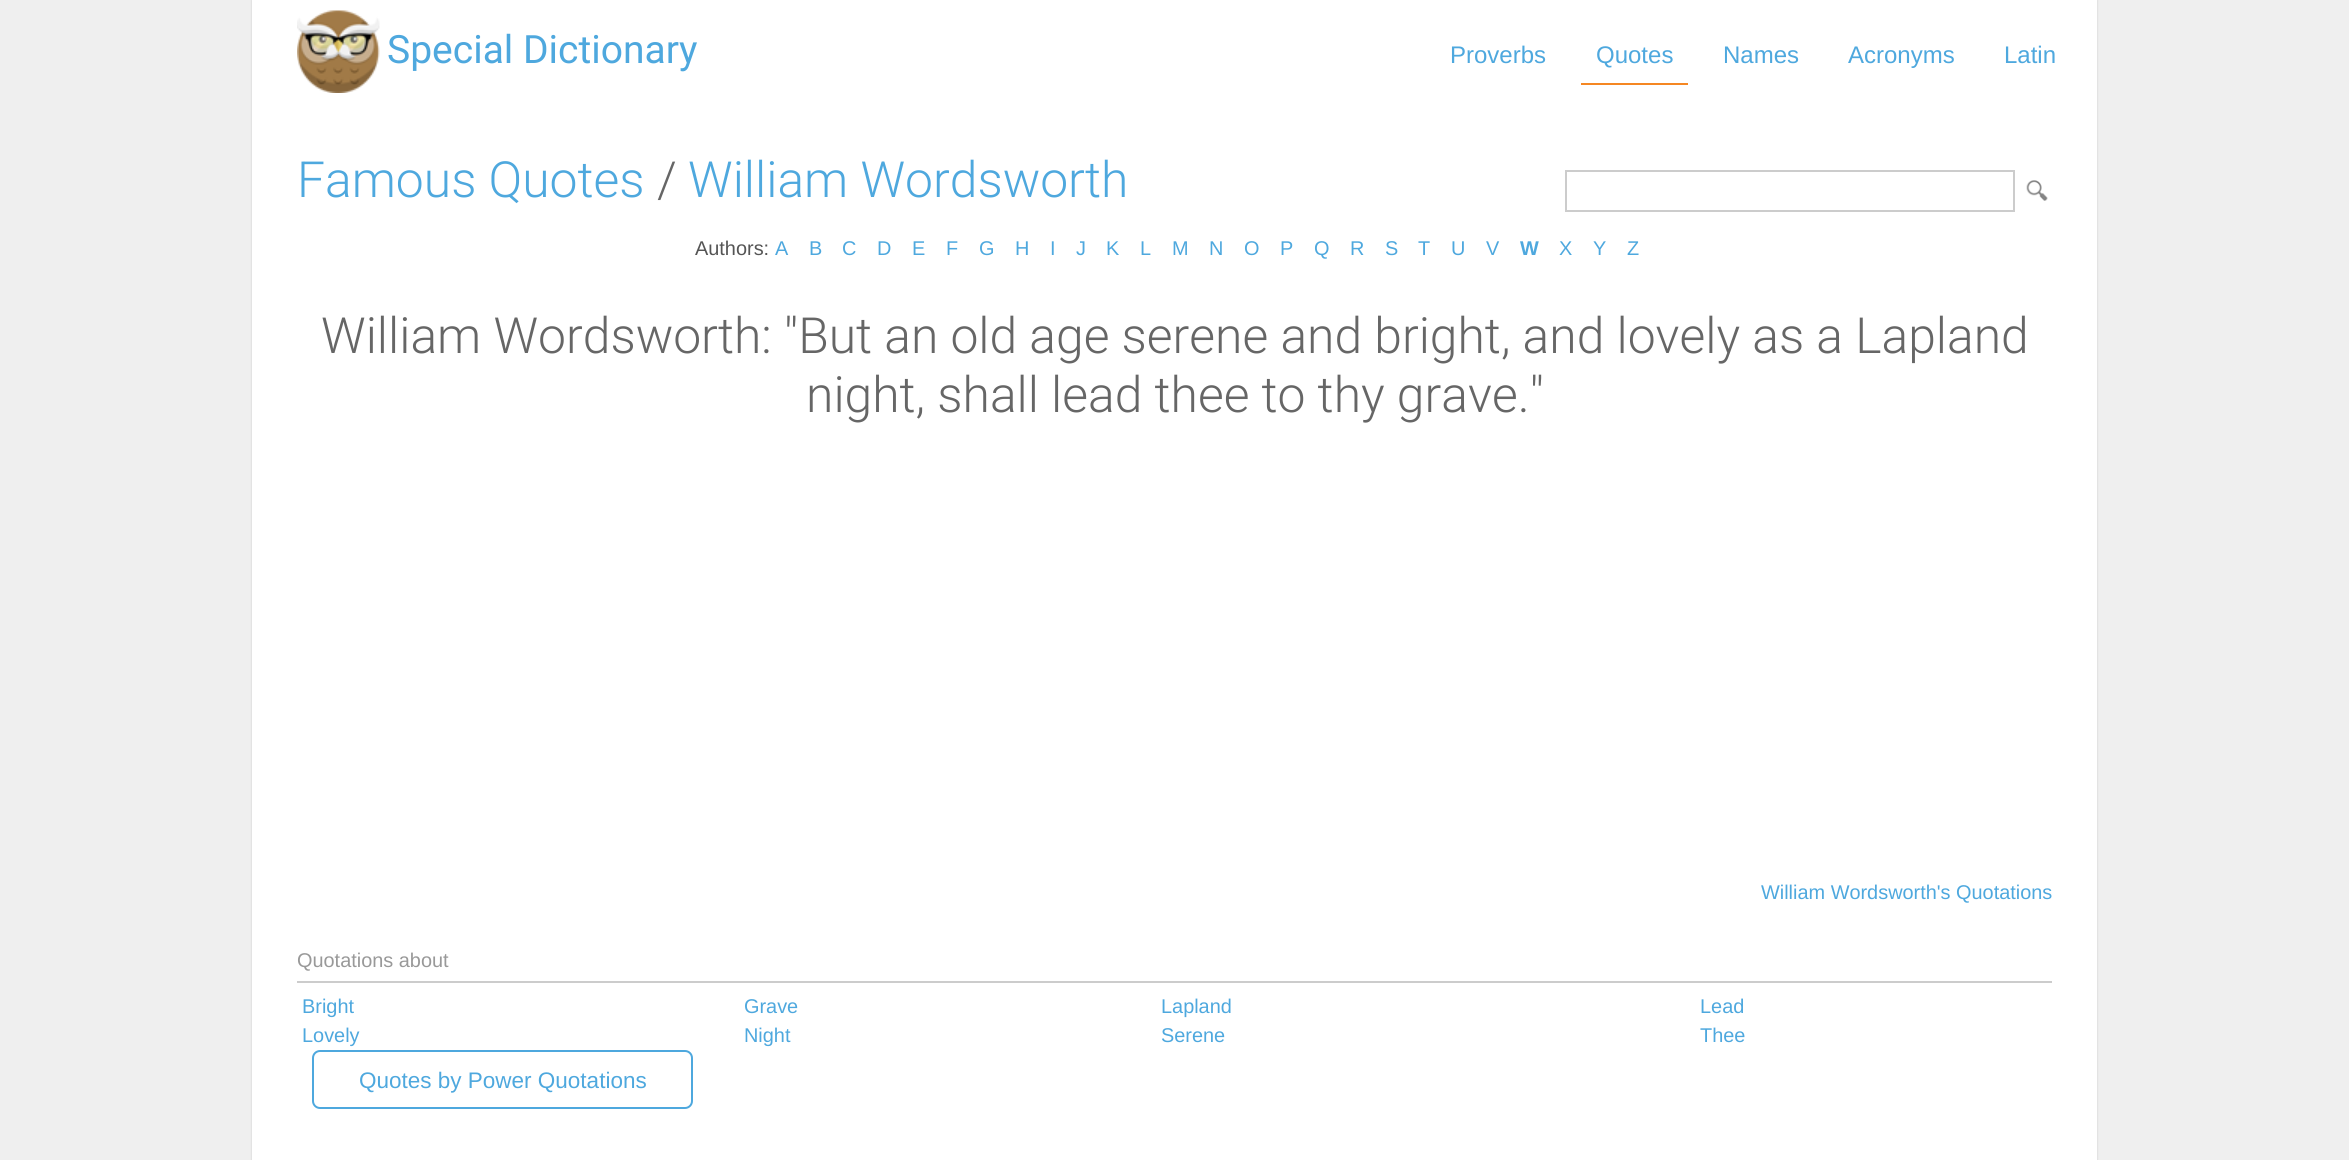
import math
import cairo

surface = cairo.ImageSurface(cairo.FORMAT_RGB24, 2349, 1160)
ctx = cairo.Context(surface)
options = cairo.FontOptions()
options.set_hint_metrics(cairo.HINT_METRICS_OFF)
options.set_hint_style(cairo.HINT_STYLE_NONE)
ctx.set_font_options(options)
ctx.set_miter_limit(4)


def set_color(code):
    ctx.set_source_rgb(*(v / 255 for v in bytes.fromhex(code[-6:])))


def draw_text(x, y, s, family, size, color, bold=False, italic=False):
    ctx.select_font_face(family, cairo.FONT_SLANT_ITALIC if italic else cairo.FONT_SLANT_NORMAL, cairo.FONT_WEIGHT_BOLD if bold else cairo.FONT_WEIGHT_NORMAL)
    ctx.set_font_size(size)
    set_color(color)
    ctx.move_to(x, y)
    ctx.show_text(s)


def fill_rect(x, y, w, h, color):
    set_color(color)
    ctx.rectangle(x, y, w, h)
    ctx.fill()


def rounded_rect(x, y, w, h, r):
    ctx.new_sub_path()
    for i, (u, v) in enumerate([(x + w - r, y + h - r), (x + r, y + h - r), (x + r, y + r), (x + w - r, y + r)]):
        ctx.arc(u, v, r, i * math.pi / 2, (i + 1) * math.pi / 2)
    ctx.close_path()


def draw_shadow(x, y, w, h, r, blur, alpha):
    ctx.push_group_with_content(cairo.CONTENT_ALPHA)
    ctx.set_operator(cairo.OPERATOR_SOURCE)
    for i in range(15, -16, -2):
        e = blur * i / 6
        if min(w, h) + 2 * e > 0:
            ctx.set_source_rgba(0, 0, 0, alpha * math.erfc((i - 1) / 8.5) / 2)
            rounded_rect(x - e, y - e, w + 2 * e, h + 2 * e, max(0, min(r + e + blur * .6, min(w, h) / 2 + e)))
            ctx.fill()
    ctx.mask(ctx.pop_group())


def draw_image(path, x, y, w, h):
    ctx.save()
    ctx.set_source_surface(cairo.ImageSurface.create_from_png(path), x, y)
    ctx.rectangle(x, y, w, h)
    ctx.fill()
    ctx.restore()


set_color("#efefef")
ctx.paint()
set_color("#cccccc")
draw_shadow(252, 0, 1845, 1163, 0, 1, 1)
fill_rect(252, 0, 1845, 1160, "#ffffff")
draw_image("assets/img1.png", 297, 10, 83, 83)
draw_text(387, 63, "Special Dictionary", "Roboto", 39, "#4ea8de")
draw_text(1450, 63, "Proverbs", "Liberation Sans", 24, "#4ea8de")
draw_text(1596, 63, "Quotes", "Liberation Sans", 24, "#4ea8de")
fill_rect(1581, 83, 107, 2, "#f58723")
draw_text(1723, 63, "Names", "Liberation Sans", 24, "#4ea8de")
draw_text(1848, 63, "Acronyms", "Liberation Sans", 24, "#4ea8de")
draw_text(2004, 63, "Latin", "Liberation Sans", 24, "#4ea8de")
draw_text(297, 197, "Famous Quotes", "Roboto Light", 49.8, "#4ea8de")
draw_text(657, 197, "/", "Roboto Light", 49.8, "#666666")
draw_text(688, 197, "William Wordsworth", "Roboto Light", 49.8, "#4ea8de")
ctx.rectangle(1566, 171, 448, 40)
set_color("#cccccc")
ctx.stroke()
draw_image("assets/img2.png", 2026, 180, 22, 21)
draw_text(695, 255, "Authors:", "Liberation Sans", 19.9, "#555555")
draw_text(775, 255, "A", "Liberation Sans", 19.9, "#4ea8de")
draw_text(809, 255, "B", "Liberation Sans", 19.9, "#4ea8de")
draw_text(842, 255, "C", "Liberation Sans", 19.9, "#4ea8de")
draw_text(877, 255, "D", "Liberation Sans", 19.9, "#4ea8de")
draw_text(912, 255, "E", "Liberation Sans", 19.9, "#4ea8de")
draw_text(946, 255, "F", "Liberation Sans", 19.9, "#4ea8de")
draw_text(979, 255, "G", "Liberation Sans", 19.9, "#4ea8de")
draw_text(1015, 255, "H", "Liberation Sans", 19.9, "#4ea8de")
draw_text(1050, 255, "I", "Liberation Sans", 19.9, "#4ea8de")
draw_text(1076, 255, "J", "Liberation Sans", 19.9, "#4ea8de")
draw_text(1106, 255, "K", "Liberation Sans", 19.9, "#4ea8de")
draw_text(1140, 255, "L", "Liberation Sans", 19.9, "#4ea8de")
draw_text(1172, 255, "M", "Liberation Sans", 19.9, "#4ea8de")
draw_text(1209, 255, "N", "Liberation Sans", 19.9, "#4ea8de")
draw_text(1244, 255, "O", "Liberation Sans", 19.9, "#4ea8de")
draw_text(1280, 255, "P", "Liberation Sans", 19.9, "#4ea8de")
draw_text(1314, 255, "Q", "Liberation Sans", 19.9, "#4ea8de")
draw_text(1350, 255, "R", "Liberation Sans", 19.9, "#4ea8de")
draw_text(1385, 255, "S", "Liberation Sans", 19.9, "#4ea8de")
draw_text(1418, 255, "T", "Liberation Sans", 19.9, "#4ea8de")
draw_text(1451, 255, "U", "Liberation Sans", 19.9, "#4ea8de")
draw_text(1486, 255, "V", "Liberation Sans", 19.9, "#4ea8de")
draw_text(1520, 255, "W", "Liberation Sans", 19.9, "#4ea8de", bold=True)
draw_text(1559, 255, "X", "Liberation Sans", 19.9, "#4ea8de")
draw_text(1593, 255, "Y", "Liberation Sans", 19.9, "#4ea8de")
draw_text(1627, 255, "Z", "Liberation Sans", 19.9, "#4ea8de")
draw_text(321, 353, "William Wordsworth: \"But an old age serene and bright, and lovely as a Lapland", "Roboto Light", 49.8, "#666666")
draw_text(806, 412, "night, shall lead thee to thy grave.\"", "Roboto Light", 49.8, "#666666")
draw_text(1761, 899, "William Wordsworth's Quotations", "Liberation Sans", 19.9, "#4ea8de")
fill_rect(297, 981, 1755, 2, "#cccccc")
draw_text(297, 967, "Quotations about", "Liberation Sans", 19.9, "#999999")
draw_text(302, 1013, "Bright", "Liberation Sans", 19.9, "#4ea8de")
draw_text(744, 1013, "Grave", "Liberation Sans", 19.9, "#4ea8de")
draw_text(1161, 1013, "Lapland", "Liberation Sans", 19.9, "#4ea8de")
draw_text(1700, 1013, "Lead", "Liberation Sans", 19.9, "#4ea8de")
draw_text(302, 1042, "Lovely", "Liberation Sans", 19.9, "#4ea8de")
draw_text(744, 1042, "Night", "Liberation Sans", 19.9, "#4ea8de")
draw_text(1161, 1042, "Serene", "Liberation Sans", 19.9, "#4ea8de")
draw_text(1700, 1042, "Thee", "Liberation Sans", 19.9, "#4ea8de")
rounded_rect(313, 1051, 379, 57, 7)
ctx.stroke()
draw_text(359, 1088, "Quotes by Power Quotations", "Liberation Sans", 22.5, "#4ea8de")
surface.write_to_png("output.png")
